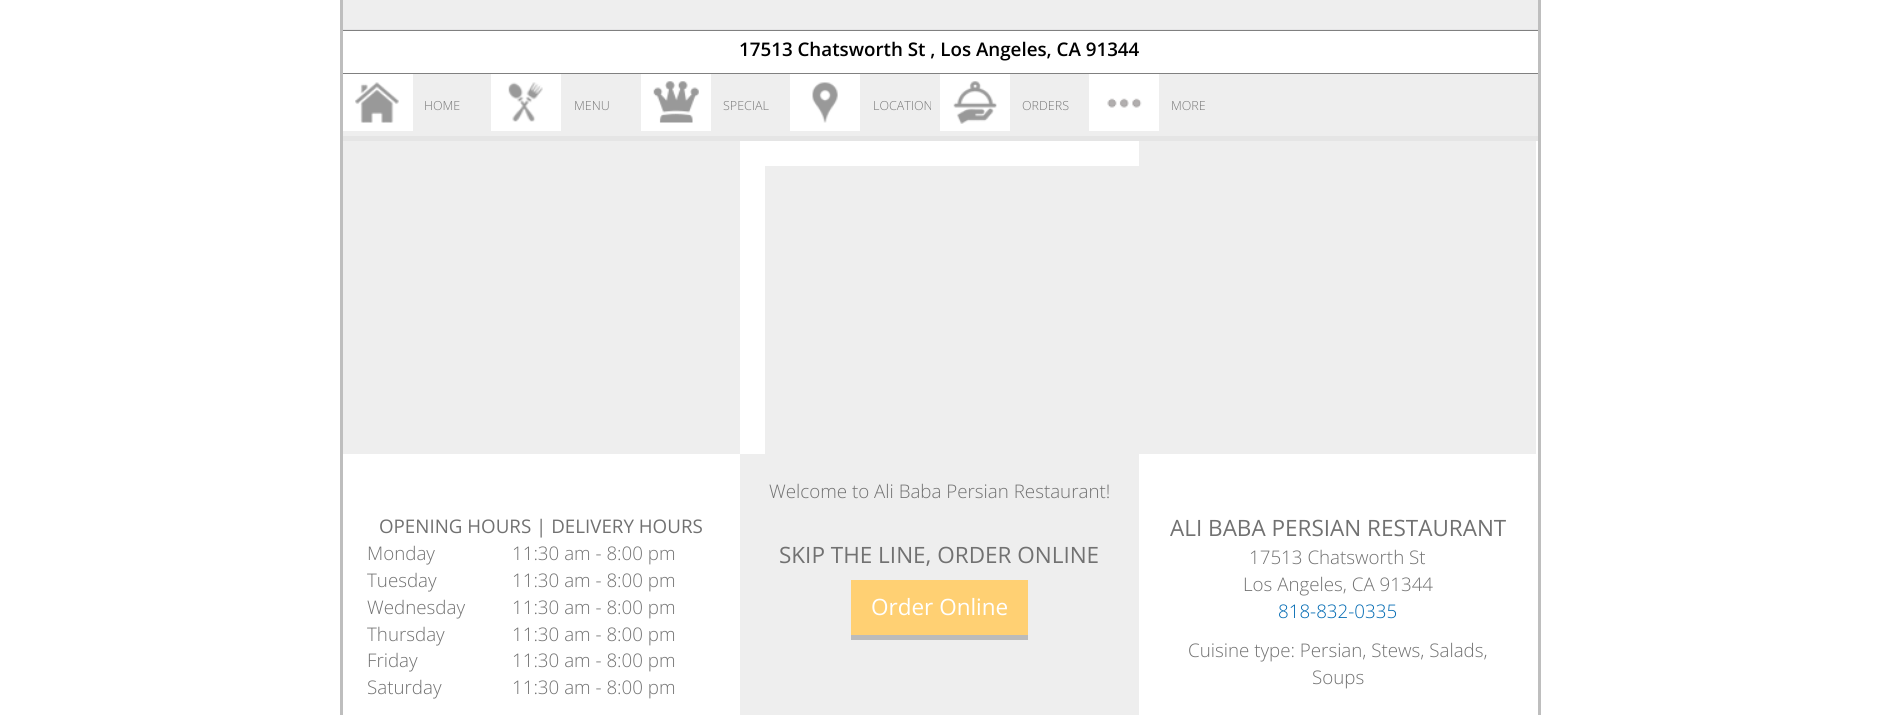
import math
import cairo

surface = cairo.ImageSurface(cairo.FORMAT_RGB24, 1878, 715)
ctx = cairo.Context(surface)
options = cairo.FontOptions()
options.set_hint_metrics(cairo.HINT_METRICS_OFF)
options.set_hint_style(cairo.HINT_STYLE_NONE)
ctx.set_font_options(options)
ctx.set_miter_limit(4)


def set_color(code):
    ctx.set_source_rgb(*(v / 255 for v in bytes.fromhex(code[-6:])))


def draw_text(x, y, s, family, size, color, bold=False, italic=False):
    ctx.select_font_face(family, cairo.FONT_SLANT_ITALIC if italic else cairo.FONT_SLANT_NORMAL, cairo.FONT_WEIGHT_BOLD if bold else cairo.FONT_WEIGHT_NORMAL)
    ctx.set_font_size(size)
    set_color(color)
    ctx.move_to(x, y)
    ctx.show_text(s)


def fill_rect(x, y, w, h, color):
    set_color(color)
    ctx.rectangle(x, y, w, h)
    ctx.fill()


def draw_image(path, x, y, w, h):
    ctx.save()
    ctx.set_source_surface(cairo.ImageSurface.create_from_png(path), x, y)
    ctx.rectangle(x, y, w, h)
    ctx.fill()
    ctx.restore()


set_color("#ffffff")
ctx.paint()
fill_rect(1538, 0, 3, 715, "#bebebe")
fill_rect(340, 0, 3, 715, "#bebebe")
fill_rect(343, 0, 1195, 29, "#eeeeee")
fill_rect(343, 74, 1195, 62, "#eeeeee")
fill_rect(343, 29, 1195, 1, "#e5e5e6")
fill_rect(343, 136, 1195, 5, "#e5e5e5")
fill_rect(343, 30, 1195, 1, "#808080")
fill_rect(343, 73, 1195, 1, "#808080")
draw_text(739, 56, "17513 Chatsworth St , Los Angeles, CA 91344", "Open Sans SemiBold", 18.75, "#000000")
fill_rect(343, 74, 70, 57, "#ffffff")
draw_image("assets/img1.png", 355, 82, 44, 41)
draw_text(424, 110, "HOME", "Open Sans Light", 12.5, "#777777")
fill_rect(491, 74, 70, 57, "#ffffff")
draw_image("assets/img2.png", 508, 82, 35, 40)
draw_text(574, 110, "MENU", "Open Sans Light", 12.5, "#777777")
fill_rect(641, 74, 70, 57, "#ffffff")
draw_image("assets/img3.png", 653, 81, 46, 42)
draw_text(723, 110, "SPECIAL", "Open Sans Light", 12.5, "#777777")
fill_rect(790, 74, 70, 57, "#ffffff")
draw_image("assets/img4.png", 812, 82, 26, 41)
draw_text(873, 110, "LOCATION", "Open Sans Light", 12.5, "#777777")
fill_rect(940, 74, 70, 57, "#ffffff")
draw_image("assets/img5.png", 953, 81, 44, 43)
draw_text(1022, 110, "ORDERS", "Open Sans Light", 12.5, "#777777")
fill_rect(1089, 74, 70, 57, "#ffffff")
draw_image("assets/img6.png", 1107, 98, 35, 10)
draw_text(1171, 110, "MORE", "Open Sans Light", 12.5, "#777777")
fill_rect(343, 141, 397, 313, "#eeeeee")
fill_rect(765, 166, 374, 288, "#eeeeee")
fill_rect(1139, 141, 397, 313, "#eeeeee")
draw_text(379, 533, "OPENING HOURS | DELIVERY HOURS", "Open Sans", 18.75, "#717171")
draw_text(367, 560, "Monday", "Open Sans Light", 18.75, "#717171")
draw_text(512, 560, "11:30 am - 8:00 pm", "Open Sans Light", 18.75, "#717171")
draw_text(367, 587, "Tuesday", "Open Sans Light", 18.75, "#717171")
draw_text(512, 587, "11:30 am - 8:00 pm", "Open Sans Light", 18.75, "#717171")
draw_text(367, 614, "Wednesday", "Open Sans Light", 18.75, "#717171")
draw_text(512, 614, "11:30 am - 8:00 pm", "Open Sans Light", 18.75, "#717171")
draw_text(367, 641, "Thursday", "Open Sans Light", 18.75, "#717171")
draw_text(512, 641, "11:30 am - 8:00 pm", "Open Sans Light", 18.75, "#717171")
draw_text(367, 667, "Friday", "Open Sans Light", 18.75, "#717171")
draw_text(512, 667, "11:30 am - 8:00 pm", "Open Sans Light", 18.75, "#717171")
draw_text(367, 694, "Saturday", "Open Sans Light", 18.75, "#717171")
draw_text(512, 694, "11:30 am - 8:00 pm", "Open Sans Light", 18.75, "#717171")
fill_rect(740, 454, 399, 261, "#eeeeee")
draw_text(769, 498, "Welcome to Ali Baba Persian Restaurant!", "Open Sans Light", 18.75, "#717171")
draw_text(779, 563, "SKIP THE LINE, ORDER ONLINE", "Open Sans", 22.5, "#717171")
fill_rect(851, 580, 177, 55, "#ffd073")
fill_rect(851, 635, 177, 5, "#bbbbbb")
draw_text(871, 615, "Order Online", "Open Sans", 22.5, "#ffffff")
draw_text(1170, 536, "ALI BABA PERSIAN RESTAURANT", "Open Sans", 22.5, "#717171")
draw_text(1249, 564, "17513 Chatsworth St", "Open Sans Light", 18.75, "#717171")
draw_text(1243, 591, "Los Angeles, CA 91344", "Open Sans Light", 18.75, "#717171")
draw_text(1278, 618, "818-832-0335", "Open Sans Light", 18.75, "#0069b2")
draw_text(1188, 657, "Cuisine type: Persian, Stews, Salads,", "Open Sans Light", 18.75, "#717171")
draw_text(1312, 684, "Soups", "Open Sans Light", 18.75, "#717171")
surface.write_to_png("output.png")
